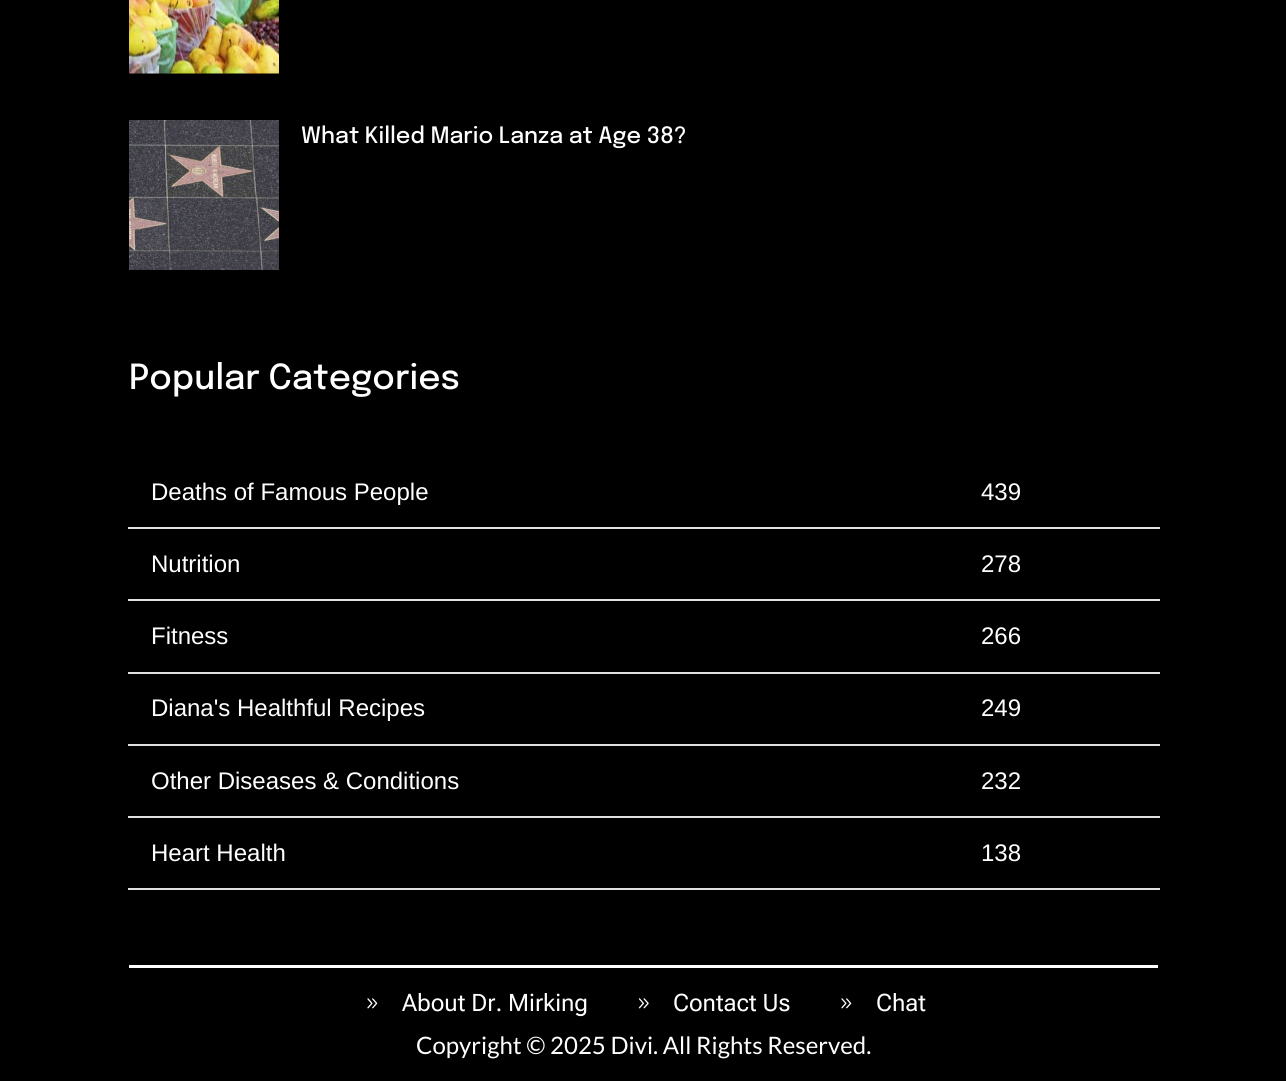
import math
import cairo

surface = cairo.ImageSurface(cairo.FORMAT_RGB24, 1286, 1081)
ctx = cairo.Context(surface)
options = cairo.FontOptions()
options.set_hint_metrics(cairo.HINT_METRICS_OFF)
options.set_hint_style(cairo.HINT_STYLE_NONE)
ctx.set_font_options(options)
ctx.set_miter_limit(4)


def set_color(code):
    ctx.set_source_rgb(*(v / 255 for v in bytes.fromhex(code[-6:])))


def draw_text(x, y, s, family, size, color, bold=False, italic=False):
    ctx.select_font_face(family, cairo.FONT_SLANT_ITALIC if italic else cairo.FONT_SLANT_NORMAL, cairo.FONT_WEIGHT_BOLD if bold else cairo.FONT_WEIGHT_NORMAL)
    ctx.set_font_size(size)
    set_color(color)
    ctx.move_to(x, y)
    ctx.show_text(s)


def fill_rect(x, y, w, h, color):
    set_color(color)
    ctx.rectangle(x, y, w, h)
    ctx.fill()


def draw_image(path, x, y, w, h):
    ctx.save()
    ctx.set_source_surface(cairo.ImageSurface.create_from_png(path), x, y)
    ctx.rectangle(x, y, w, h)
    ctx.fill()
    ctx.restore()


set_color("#000000")
ctx.paint()
draw_image("assets/img1.png", 129, 0, 150, 74)
draw_image("assets/img2.png", 129, 120, 150, 150)
draw_text(301, 143, "What Killed Mario Lanza at Age 38?", "Epilogue Medium", 22.5, "#ffffff")
draw_text(129, 389, "Popular Categories", "Epilogue Medium", 34.5, "#ffffff")
fill_rect(128, 527, 1032, 2, "#e0e0e0")
draw_text(151, 500, "Deaths of Famous People", "Liberation Sans", 24, "#ffffff")
draw_text(981, 500, "439", "Liberation Sans", 24, "#ffffff")
fill_rect(128, 599, 1032, 2, "#e0e0e0")
draw_text(151, 572, "Nutrition", "Liberation Sans", 24, "#ffffff")
draw_text(981, 572, "278", "Liberation Sans", 24, "#ffffff")
fill_rect(128, 672, 1032, 2, "#e0e0e0")
draw_text(151, 644, "Fitness", "Liberation Sans", 24, "#ffffff")
draw_text(981, 644, "266", "Liberation Sans", 24, "#ffffff")
fill_rect(128, 744, 1032, 2, "#e0e0e0")
draw_text(151, 716, "Diana's Healthful Recipes", "Liberation Sans", 24, "#ffffff")
draw_text(981, 716, "249", "Liberation Sans", 24, "#ffffff")
fill_rect(128, 816, 1032, 2, "#e0e0e0")
draw_text(151, 789, "Other Diseases & Conditions", "Liberation Sans", 24, "#ffffff")
draw_text(981, 789, "232", "Liberation Sans", 24, "#ffffff")
fill_rect(128, 888, 1032, 2, "#e0e0e0")
draw_text(151, 861, "Heart Health", "Liberation Sans", 24, "#ffffff")
draw_text(981, 861, "138", "Liberation Sans", 24, "#ffffff")
fill_rect(129, 965, 1029, 3, "#ffffff")
draw_image("assets/img3.png", 367, 998, 11, 11)
draw_text(402, 1011, "About Dr. Mirking", "Roboto Flex", 24, "#ffffff")
draw_image("assets/img4.png", 638, 998, 11, 11)
draw_text(673, 1011, "Contact Us", "Roboto Flex", 24, "#ffffff")
draw_image("assets/img3.png", 841, 998, 11, 11)
draw_text(876, 1011, "Chat", "Roboto Flex", 24, "#ffffff")
draw_text(416, 1054, "Copyright © 2025 Divi. All Rights Reserved.", "Lato", 24, "#ffffff")
surface.write_to_png("output.png")
